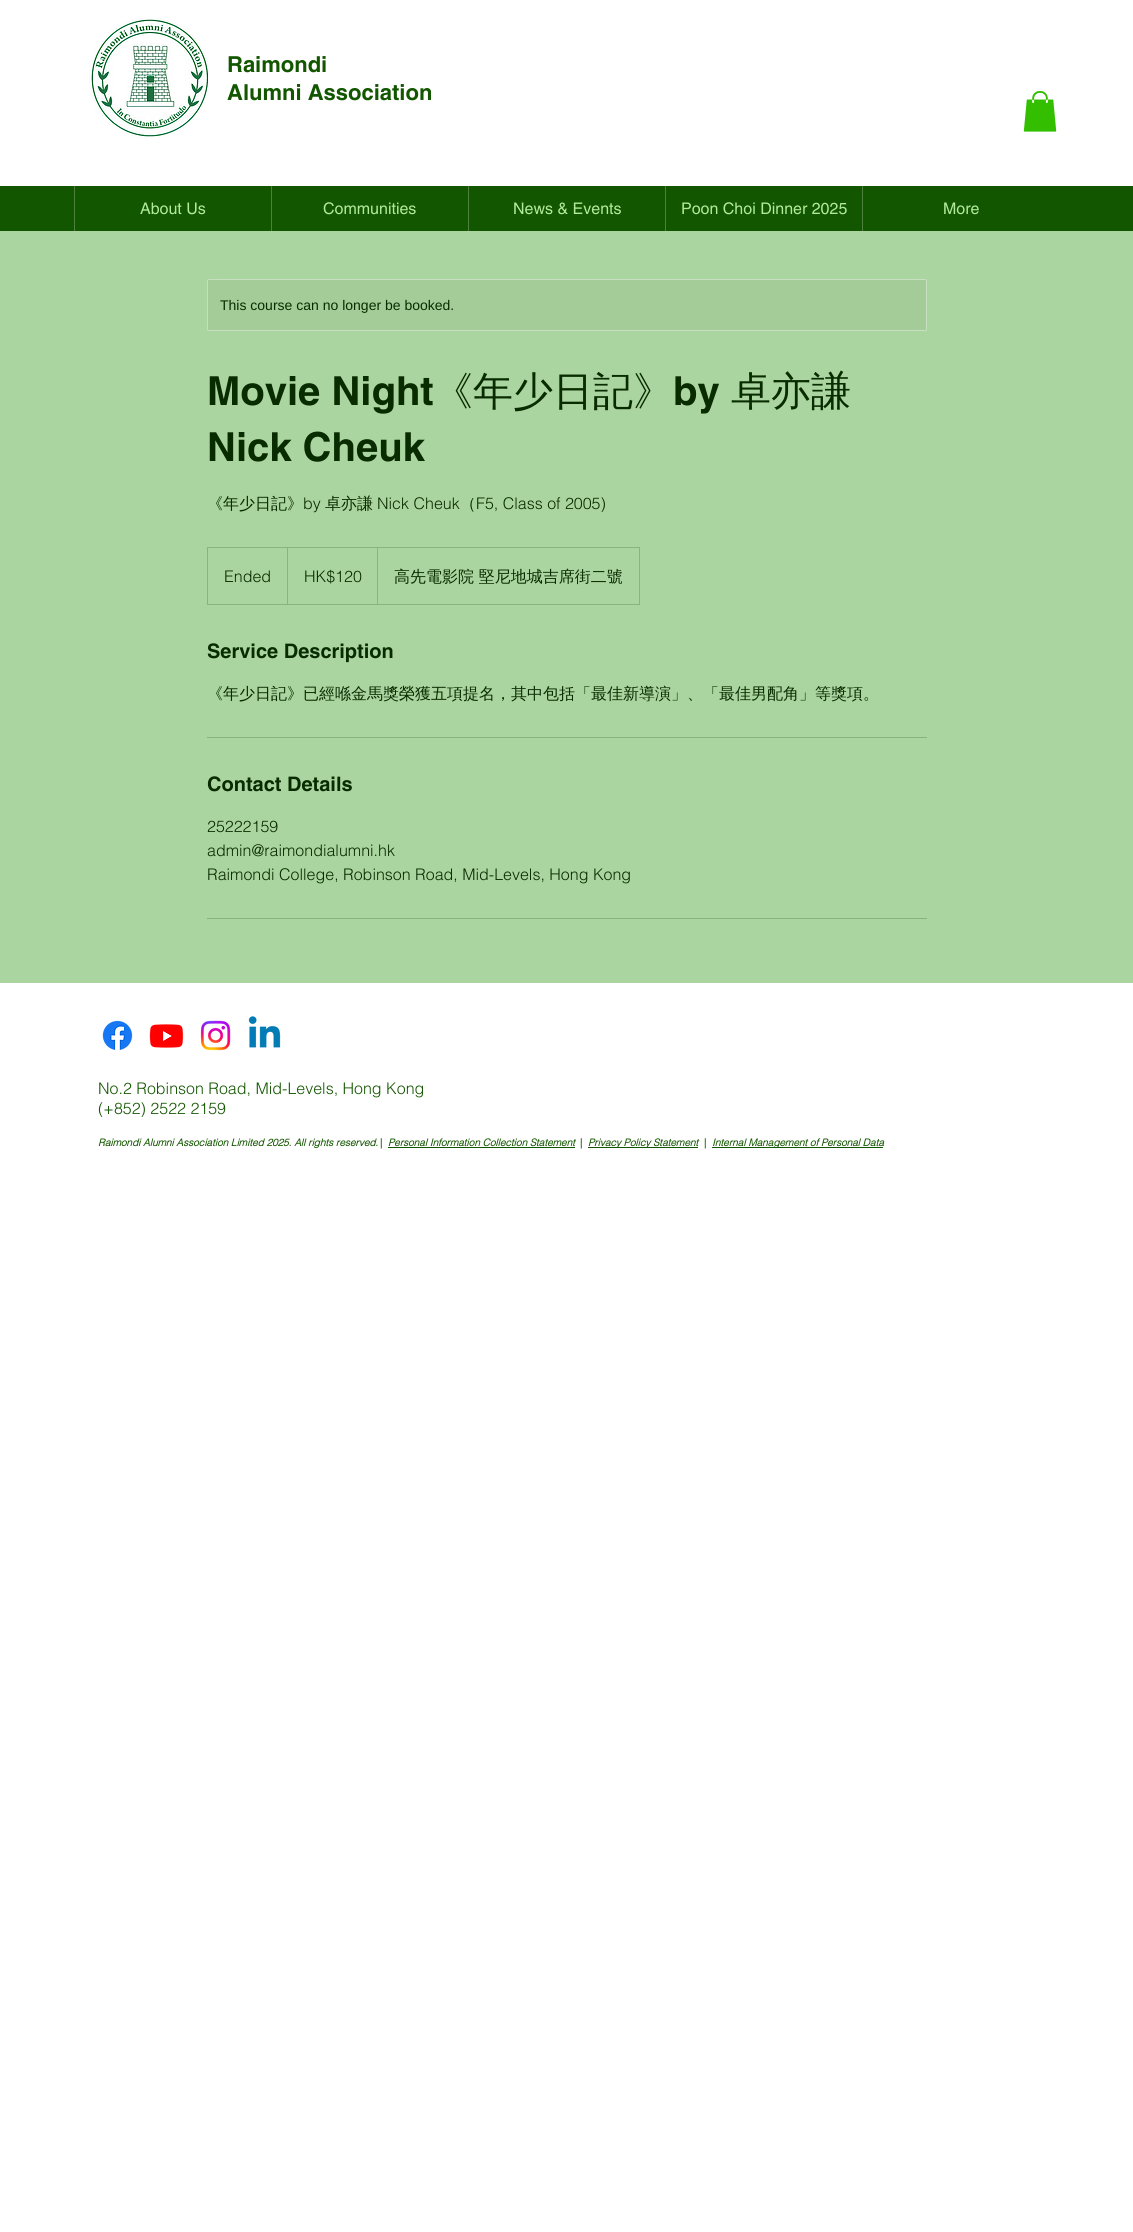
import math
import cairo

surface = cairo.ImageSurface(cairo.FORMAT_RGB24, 1133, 2232)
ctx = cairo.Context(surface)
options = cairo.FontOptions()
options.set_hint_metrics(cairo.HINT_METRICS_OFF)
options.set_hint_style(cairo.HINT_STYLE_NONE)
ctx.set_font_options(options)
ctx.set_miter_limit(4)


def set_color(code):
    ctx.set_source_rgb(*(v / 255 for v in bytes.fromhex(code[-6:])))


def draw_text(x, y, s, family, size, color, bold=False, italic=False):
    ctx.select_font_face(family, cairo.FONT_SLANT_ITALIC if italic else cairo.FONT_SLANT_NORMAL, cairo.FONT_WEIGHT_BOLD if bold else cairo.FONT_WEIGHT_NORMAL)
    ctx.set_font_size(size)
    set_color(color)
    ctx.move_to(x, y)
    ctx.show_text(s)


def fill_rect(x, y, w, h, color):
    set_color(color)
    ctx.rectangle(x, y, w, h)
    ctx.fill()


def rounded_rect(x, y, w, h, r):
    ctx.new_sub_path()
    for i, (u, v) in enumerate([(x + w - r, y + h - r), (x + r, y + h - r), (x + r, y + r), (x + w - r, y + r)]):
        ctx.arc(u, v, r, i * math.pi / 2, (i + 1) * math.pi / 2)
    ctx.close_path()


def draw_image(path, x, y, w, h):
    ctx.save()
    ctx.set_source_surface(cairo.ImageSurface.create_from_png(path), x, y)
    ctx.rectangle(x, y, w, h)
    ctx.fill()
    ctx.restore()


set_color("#ffffff")
ctx.paint()
draw_image("assets/img1.png", 89, 18, 121, 120)
draw_text(227, 72, "Raimondi", "helvetica", 22, "#135600", bold=True)
draw_text(227, 100, "Alumni Association", "helvetica", 22, "#135600", bold=True)
draw_image("assets/img2.png", 1023, 91, 34, 41)
fill_rect(0, 186, 1133, 45, "#135600")
fill_rect(74, 186, 1, 45, "#4e8040")
draw_text(140, 214, "About Us", "helvetica", 16, "#b1ea9c")
fill_rect(271, 186, 1, 45, "#4e8040")
draw_text(323, 214, "Communities", "helvetica", 16, "#b1ea9c")
fill_rect(468, 186, 1, 45, "#4e8040")
draw_text(513, 214, "News & Events", "helvetica", 16, "#b1ea9c")
fill_rect(665, 186, 1, 45, "#4e8040")
draw_text(681, 214, "Poon Choi Dinner 2025", "helvetica", 16, "#b1ea9c")
fill_rect(862, 186, 1, 45, "#4e8040")
draw_text(943, 214, "More", "helvetica", 16, "#b1ea9c")
fill_rect(0, 231, 1133, 752, "#abd5a0")
set_color("#a3cc98")
rounded_rect(207.5, 279.5, 719, 51, 1.5)
ctx.fill_preserve()
set_color("#c8e0c1")
ctx.set_line_width(1)
ctx.stroke()
draw_text(220, 310, "This course can no longer be booked.", "Liberation Sans", 14, "#092b00")
draw_text(207, 405, "Movie Night", "helvetica", 40, "#092b00", bold=True)
draw_text(433, 405, "《年少日記》", "WenQuanYi Zen Hei Medium", 40, "#092b00")
draw_text(673, 405, "by", "helvetica", 40, "#092b00", bold=True)
draw_text(731, 405, "卓亦謙", "WenQuanYi Zen Hei Medium", 40, "#092b00")
draw_text(207, 461, "Nick Cheuk", "helvetica", 40, "#092b00", bold=True)
draw_text(207, 509, "《年少日記》", "WenQuanYi Zen Hei Medium", 16, "#092b00")
draw_text(303, 509, "by", "helvetica Light", 16, "#092b00")
draw_text(325, 509, "卓亦謙", "WenQuanYi Zen Hei Medium", 16, "#092b00")
draw_text(377, 509, "Nick Cheuk", "helvetica Light", 16, "#092b00")
draw_text(460, 509, "（", "WenQuanYi Zen Hei Medium", 16, "#092b00")
draw_text(476, 509, "F5, Class of 2005)", "helvetica Light", 16, "#092b00")
ctx.rectangle(207.5, 547.5, 432, 57)
set_color("#8bb380")
ctx.stroke()
draw_text(224, 582, "Ended", "helvetica Light", 16, "#092b00")
set_color("#8bb380")
ctx.new_path()
ctx.move_to(287, 604)
ctx.line_to(287, 547)
ctx.line_to(288, 548)
ctx.line_to(288, 604)
ctx.close_path()
ctx.fill()
draw_text(304, 582, "HK$120", "helvetica Light", 16, "#092b00")
set_color("#8bb380")
ctx.new_path()
ctx.move_to(377, 604)
ctx.line_to(377, 547)
ctx.line_to(378, 548)
ctx.line_to(378, 604)
ctx.close_path()
ctx.fill()
draw_text(394, 582, "高先電影院 堅尼地城吉席街二號", "WenQuanYi Zen Hei Medium", 16, "#092b00")
draw_text(207, 658, "Service Description", "helvetica", 20, "#092b00", bold=True)
draw_text(207, 699, "《年少日記》已經喺金馬獎榮獲五項提名，其中包括「最佳新導演」、「最佳男配角」等獎項。", "WenQuanYi Zen Hei Medium", 16, "#092b00")
fill_rect(207, 737, 720, 1, "#8bb380")
draw_text(207, 791, "Contact Details", "helvetica", 20, "#092b00", bold=True)
draw_text(207, 832, "25222159", "helvetica Light", 16, "#092b00")
draw_text(207, 856, "admin@raimondialumni.hk", "helvetica Light", 16, "#092b00")
draw_text(207, 880, "Raimondi College, Robinson Road, Mid-Levels, Hong Kong", "helvetica Light", 16, "#092b00")
fill_rect(207, 918, 720, 1, "#8bb380")
draw_image("assets/img3.png", 102, 1020, 31, 30)
draw_image("assets/img4.png", 149, 1024, 35, 24)
draw_image("assets/img5.png", 200, 1020, 31, 31)
draw_image("assets/img6.png", 248, 1016, 33, 32)
draw_text(98, 1094, "No.2 Robinson Road, Mid-Levels, Hong Kong", "helvetica Light", 16, "#135600")
draw_text(98, 1114, "(+852) 2522 2159", "helvetica Light", 16, "#135600")
draw_text(98, 1146, "Raimondi Alumni Association Limited 2025. All rights reserved.", "helvetica", 10, "#135600", bold=True, italic=True)
draw_text(380, 1146, "|", "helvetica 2", 10, "#135600", bold=True)
draw_text(388, 1146, "Personal Information Collection Statement", "helvetica", 10, "#135600", bold=True, italic=True)
fill_rect(388, 1147, 187, 1, "#135600")
draw_text(580, 1146, "|", "helvetica 2", 10, "#135600", bold=True)
fill_rect(588, 1147, 110, 1, "#135600")
draw_text(588, 1146, "Privacy Policy Statement", "helvetica", 10, "#135600", bold=True, italic=True)
draw_text(704, 1146, "|", "helvetica 2", 10, "#135600", bold=True)
fill_rect(712, 1147, 171, 1, "#135600")
draw_text(712, 1146, "Internal Management of Personal Data", "helvetica", 10, "#135600", bold=True, italic=True)
surface.write_to_png("output.png")
